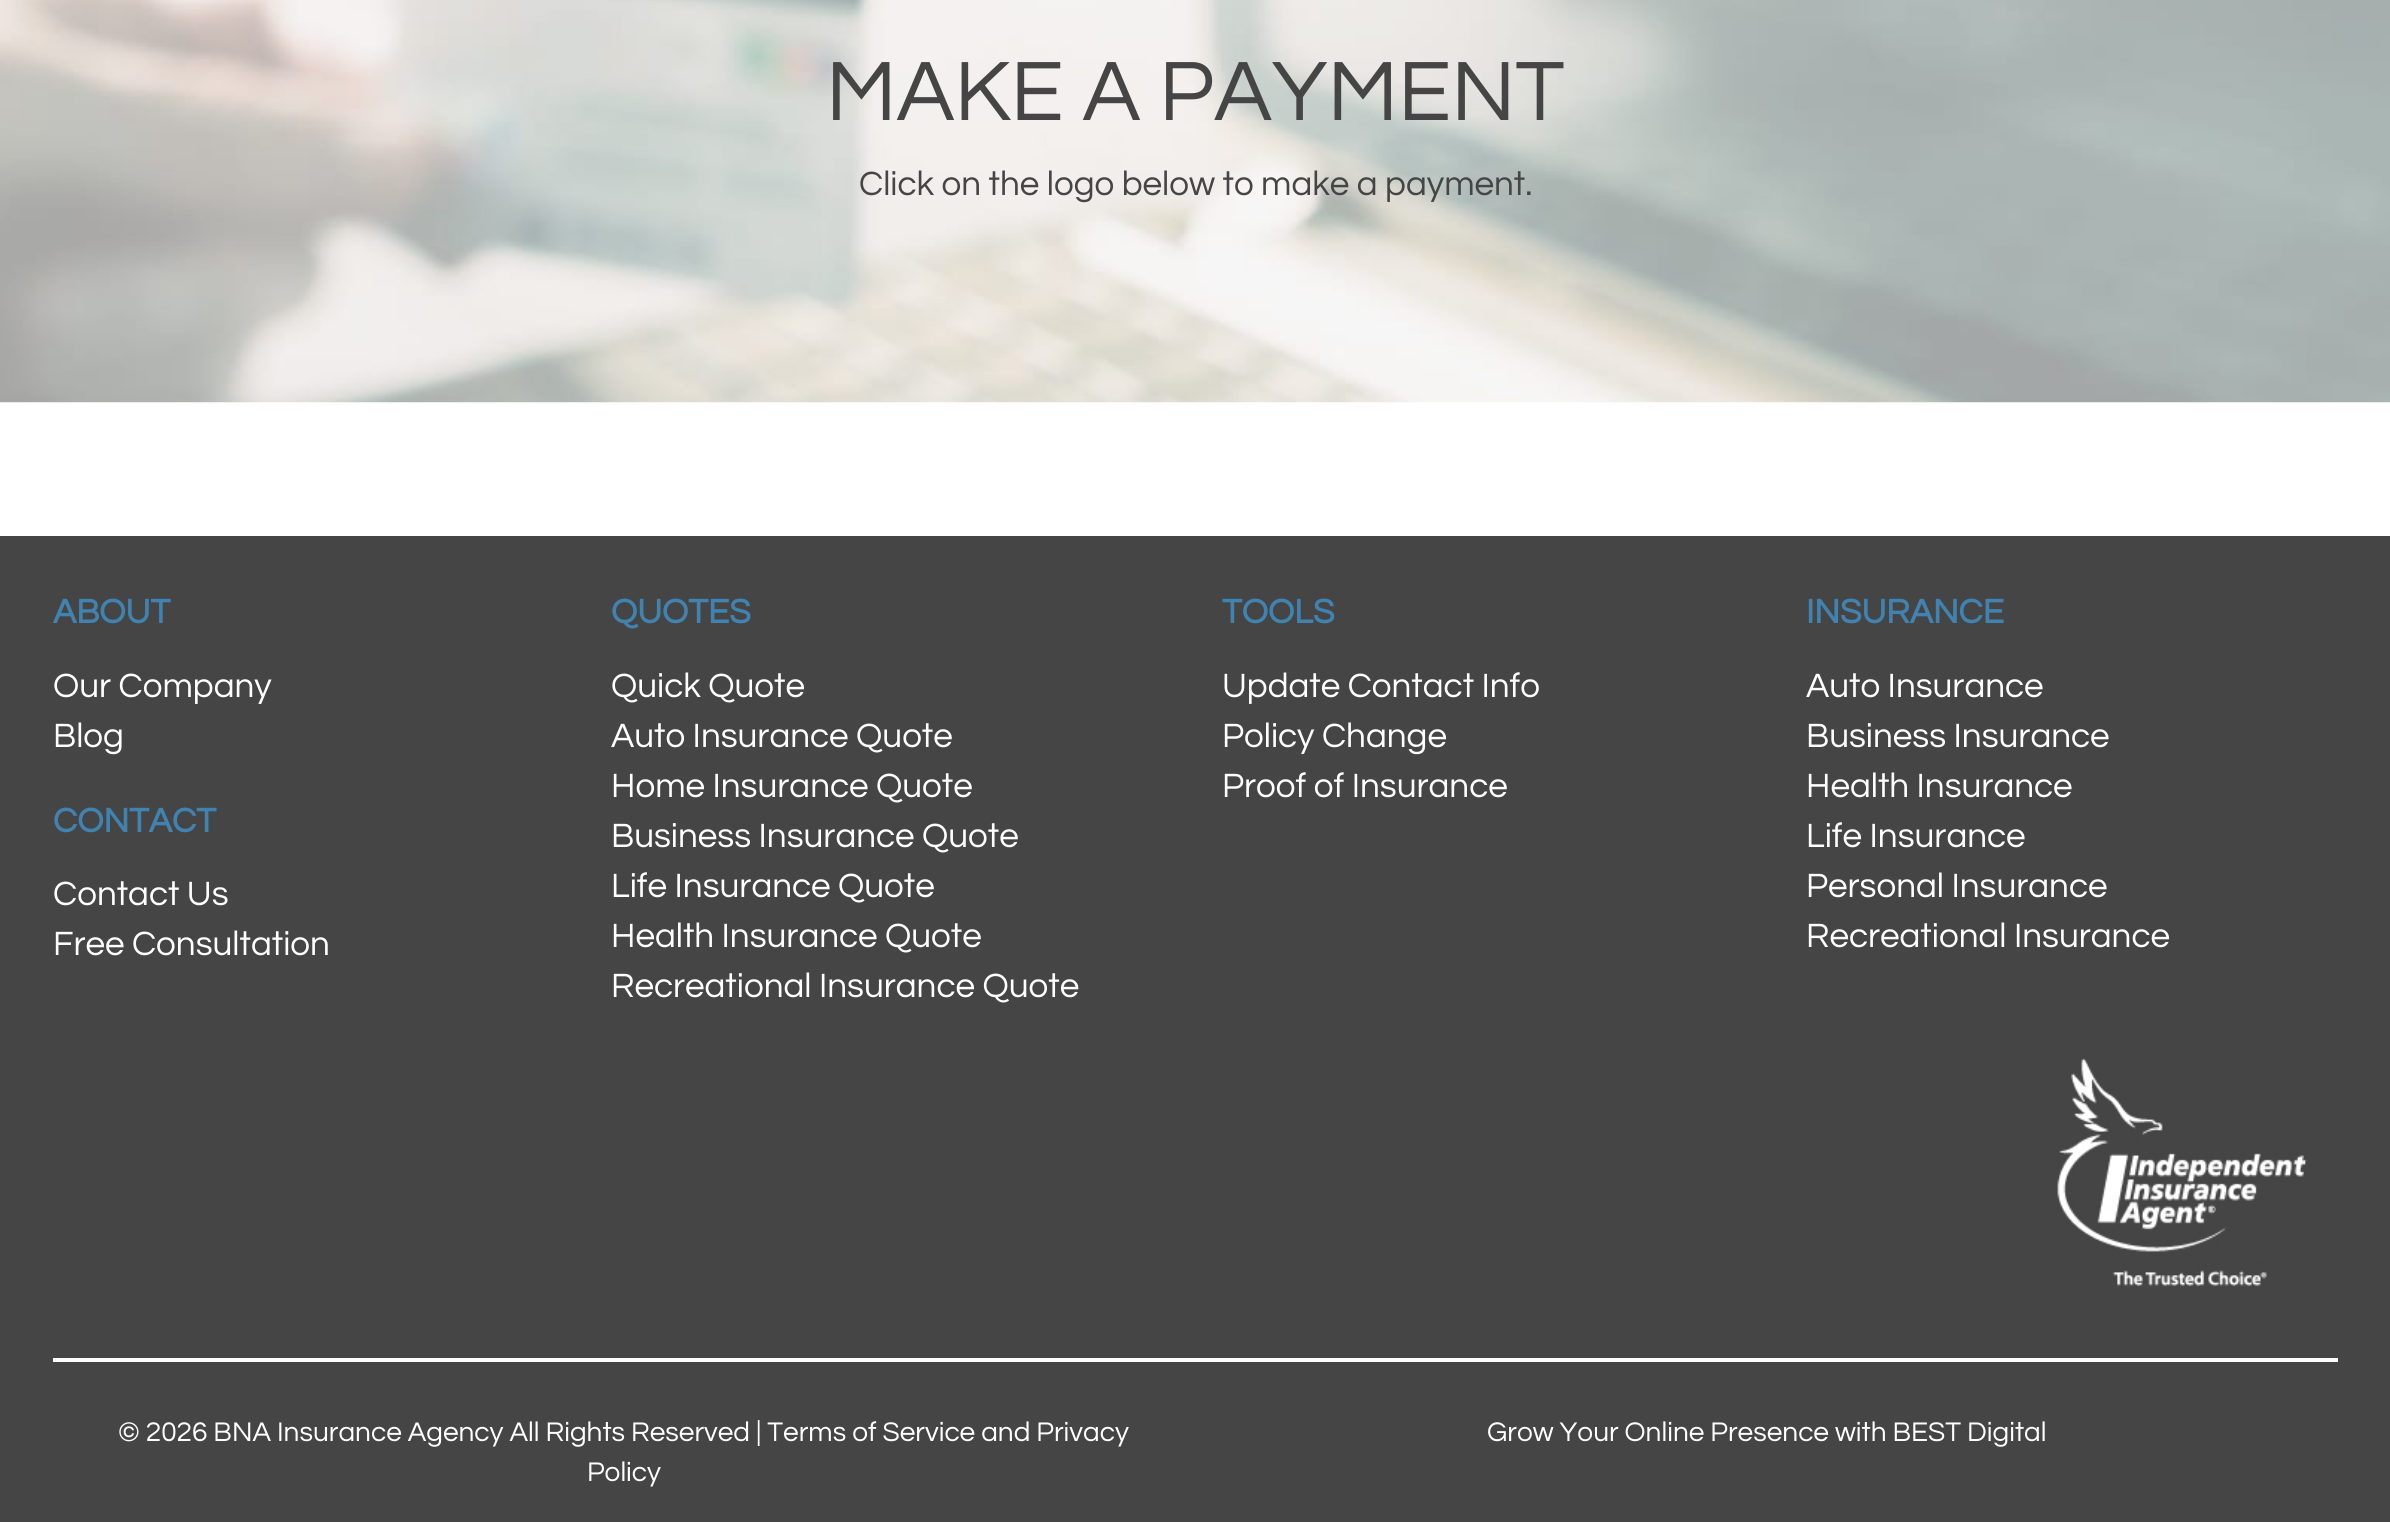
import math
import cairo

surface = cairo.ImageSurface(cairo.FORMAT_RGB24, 2390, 1522)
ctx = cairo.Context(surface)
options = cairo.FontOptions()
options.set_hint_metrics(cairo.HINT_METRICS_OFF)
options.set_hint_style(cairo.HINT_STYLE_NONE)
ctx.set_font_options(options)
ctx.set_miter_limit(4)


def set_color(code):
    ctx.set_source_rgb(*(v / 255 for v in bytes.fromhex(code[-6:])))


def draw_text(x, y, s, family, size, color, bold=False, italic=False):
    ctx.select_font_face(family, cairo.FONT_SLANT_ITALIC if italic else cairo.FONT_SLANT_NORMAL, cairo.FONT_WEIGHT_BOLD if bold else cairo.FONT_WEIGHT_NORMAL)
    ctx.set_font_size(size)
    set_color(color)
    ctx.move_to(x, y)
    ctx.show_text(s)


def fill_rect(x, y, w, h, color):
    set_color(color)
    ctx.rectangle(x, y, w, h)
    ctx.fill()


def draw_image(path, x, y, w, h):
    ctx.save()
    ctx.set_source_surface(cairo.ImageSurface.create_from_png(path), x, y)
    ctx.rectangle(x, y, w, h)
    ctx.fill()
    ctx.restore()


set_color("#ffffff")
ctx.paint()
draw_image("assets/img1.png", 0, 0, 2390, 403)
draw_text(826, 120, "MAKE A PAYMENT", "Questrial", 87.5, "#454545")
draw_text(859, 195, "Click on the logo below to make a payment.", "Questrial", 35, "#454545")
fill_rect(0, 536, 2390, 986, "#454545")
draw_text(53, 623, "ABOUT", "Questrial", 35, "#4083b1", bold=True)
draw_text(53, 697, "Our Company", "Questrial", 35, "#ffffff")
draw_text(53, 747, "Blog", "Questrial", 35, "#ffffff")
draw_text(53, 832, "CONTACT", "Questrial", 35, "#4083b1", bold=True)
draw_text(53, 905, "Contact Us", "Questrial", 35, "#ffffff")
draw_text(53, 955, "Free Consultation", "Questrial", 35, "#ffffff")
draw_text(611, 623, "QUOTES", "Questrial", 35, "#4083b1", bold=True)
draw_text(611, 697, "Quick Quote", "Questrial", 35, "#ffffff")
draw_text(611, 747, "Auto Insurance Quote", "Questrial", 35, "#ffffff")
draw_text(611, 797, "Home Insurance Quote", "Questrial", 35, "#ffffff")
draw_text(611, 847, "Business Insurance Quote", "Questrial", 35, "#ffffff")
draw_text(611, 897, "Life Insurance Quote", "Questrial", 35, "#ffffff")
draw_text(611, 947, "Health Insurance Quote", "Questrial", 35, "#ffffff")
draw_text(611, 997, "Recreational Insurance Quote", "Questrial", 35, "#ffffff")
draw_text(1222, 623, "TOOLS", "Questrial", 35, "#4083b1", bold=True)
draw_text(1222, 697, "Update Contact Info", "Questrial", 35, "#ffffff")
draw_text(1222, 747, "Policy Change", "Questrial", 35, "#ffffff")
draw_text(1222, 797, "Proof of Insurance", "Questrial", 35, "#ffffff")
draw_text(1806, 623, "INSURANCE", "Questrial", 35, "#4083b1", bold=True)
draw_text(1806, 697, "Auto Insurance", "Questrial", 35, "#ffffff")
draw_text(1806, 747, "Business Insurance", "Questrial", 35, "#ffffff")
draw_text(1806, 797, "Health Insurance", "Questrial", 35, "#ffffff")
draw_text(1806, 847, "Life Insurance", "Questrial", 35, "#ffffff")
draw_text(1806, 897, "Personal Insurance", "Questrial", 35, "#ffffff")
draw_text(1806, 947, "Recreational Insurance", "Questrial", 35, "#ffffff")
draw_image("assets/img2.png", 2057, 1058, 250, 229)
fill_rect(53, 1358, 2285, 4, "#ffffff")
draw_text(118, 1441, "© 2026 BNA Insurance Agency All Rights Reserved | Terms of Service and Privacy", "Questrial", 28, "#ffffff")
draw_text(587, 1481, "Policy", "Questrial", 28, "#ffffff")
draw_text(1487, 1441, "Grow Your Online Presence with BEST Digital", "Questrial", 28, "#ffffff")
surface.write_to_png("output.png")
